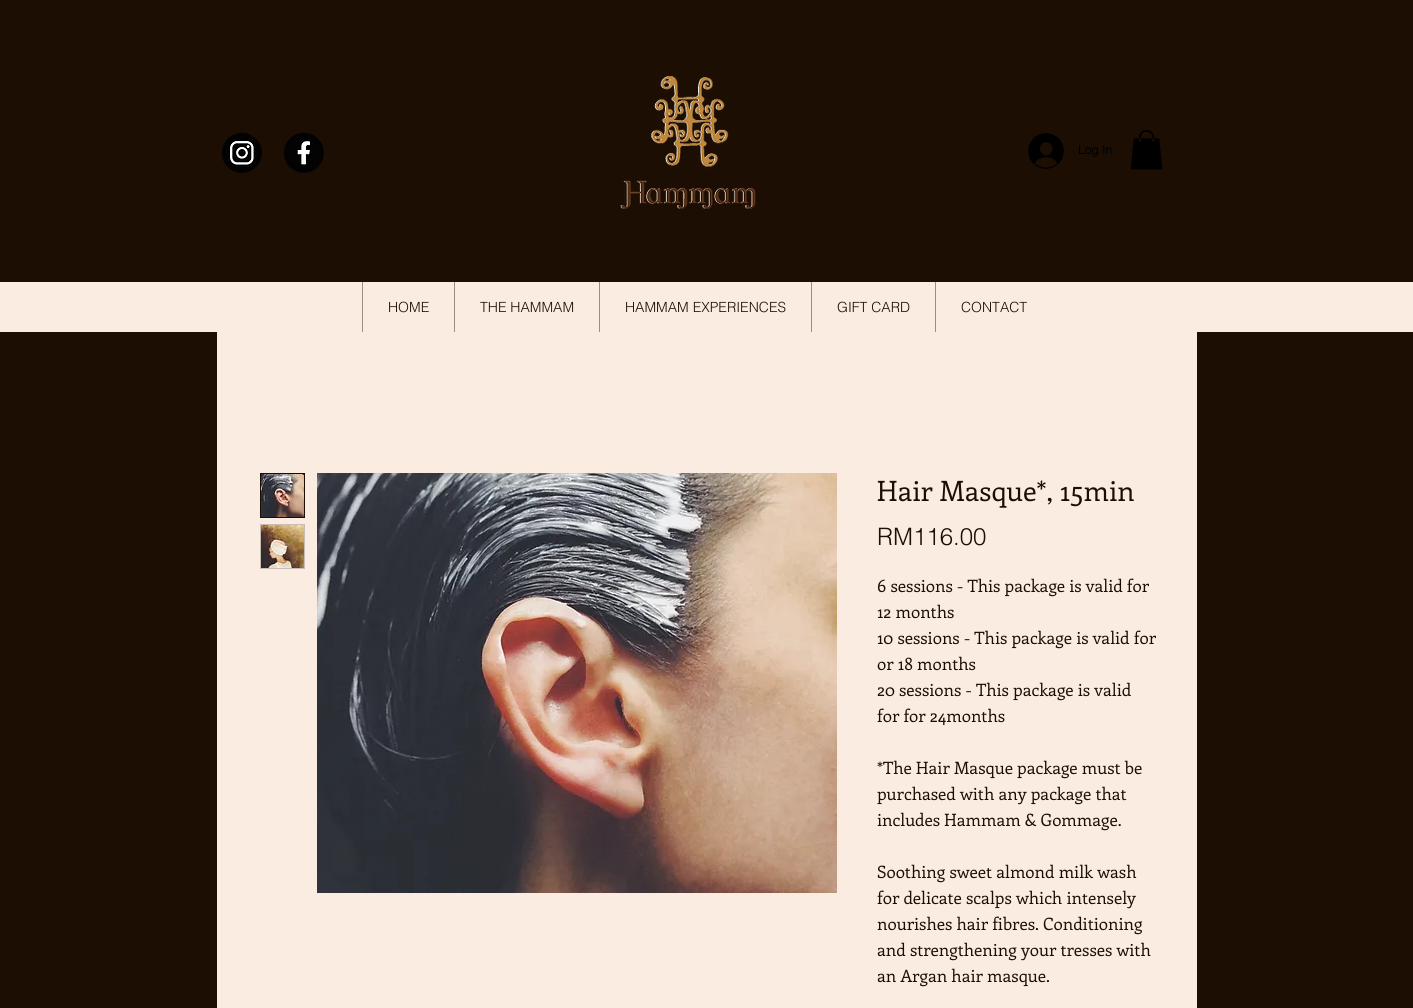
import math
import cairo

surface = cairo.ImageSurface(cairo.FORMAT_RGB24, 1413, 1008)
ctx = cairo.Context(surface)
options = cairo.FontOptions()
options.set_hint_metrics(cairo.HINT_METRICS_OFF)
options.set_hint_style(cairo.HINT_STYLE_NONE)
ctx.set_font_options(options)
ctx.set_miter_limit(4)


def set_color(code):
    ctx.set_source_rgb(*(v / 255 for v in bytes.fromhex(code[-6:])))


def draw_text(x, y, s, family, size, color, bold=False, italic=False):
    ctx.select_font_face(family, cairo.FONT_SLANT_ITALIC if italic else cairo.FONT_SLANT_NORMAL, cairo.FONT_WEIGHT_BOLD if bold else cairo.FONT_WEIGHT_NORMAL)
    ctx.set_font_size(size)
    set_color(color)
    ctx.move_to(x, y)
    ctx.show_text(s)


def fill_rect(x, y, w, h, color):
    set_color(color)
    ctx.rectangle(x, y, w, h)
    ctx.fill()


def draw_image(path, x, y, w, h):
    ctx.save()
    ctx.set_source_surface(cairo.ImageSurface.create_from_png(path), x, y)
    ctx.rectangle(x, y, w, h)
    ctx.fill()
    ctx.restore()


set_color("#1d0e03")
ctx.paint()
draw_image("assets/img1.png", 221, 132, 41, 41)
draw_image("assets/img2.png", 283, 132, 41, 41)
draw_image("assets/img3.png", 620, 76, 136, 133)
draw_image("assets/img4.png", 1028, 133, 36, 36)
draw_text(1078, 154, "Log In", "helvetica", 12, "#000000", bold=True)
draw_image("assets/img5.png", 1130, 130, 33, 40)
fill_rect(0, 282, 1413, 50, "#faece1")
fill_rect(362, 282, 1, 50, "#968e87")
draw_text(388, 312, "HOME", "helvetica Light", 14, "#1d0e03")
fill_rect(454, 282, 1, 50, "#968e87")
draw_text(480, 312, "THE HAMMAM", "helvetica Light", 14, "#1d0e03")
fill_rect(599, 282, 1, 50, "#968e87")
draw_text(625, 312, "HAMMAM EXPERIENCES", "helvetica Light", 14, "#1d0e03")
fill_rect(811, 282, 1, 50, "#968e87")
draw_text(837, 312, "GIFT CARD", "helvetica Light", 14, "#1d0e03")
fill_rect(935, 282, 1, 50, "#968e87")
draw_text(961, 312, "CONTACT", "helvetica Light", 14, "#1d0e03")
fill_rect(217, 332, 980, 676, "#faece1")
ctx.rectangle(260.5, 473.5, 44, 44)
set_color("#1d0e03")
ctx.set_line_width(1)
ctx.stroke()
draw_image("assets/img6.png", 261, 474, 43, 43)
fill_rect(260, 524, 45, 45, "#c8bdb4")
draw_image("assets/img7.png", 261, 525, 43, 43)
draw_image("assets/img8.png", 317, 473, 520, 420)
draw_text(877, 501, "Hair Masque*, 15min", "Enriqueta", 28, "#1d0e03")
draw_text(877, 545, "RM116.00", "helvetica Light", 24, "#1d0e03")
draw_text(877, 592, "6 sessions - This package is valid for", "Enriqueta", 17, "#1d0e03")
draw_text(877, 618, "12 months", "Enriqueta", 17, "#1d0e03")
draw_text(877, 644, "10 sessions - This package is valid for", "Enriqueta", 17, "#1d0e03")
draw_text(877, 670, "or 18 months", "Enriqueta", 17, "#1d0e03")
draw_text(877, 696, "20 sessions - This package is valid", "Enriqueta", 17, "#1d0e03")
draw_text(877, 722, "for for 24months", "Enriqueta", 17, "#1d0e03")
draw_text(877, 774, "*The Hair Masque package must be", "Enriqueta", 17, "#1d0e03")
draw_text(877, 800, "purchased with any package that", "Enriqueta", 17, "#1d0e03")
draw_text(877, 826, "includes Hammam & Gommage.", "Enriqueta", 17, "#1d0e03")
draw_text(877, 878, "Soothing sweet almond milk wash", "Enriqueta", 17, "#1d0e03")
draw_text(877, 904, "for delicate scalps which intensely", "Enriqueta", 17, "#1d0e03")
draw_text(877, 930, "nourishes hair fibres. Conditioning", "Enriqueta", 17, "#1d0e03")
draw_text(877, 956, "and strengthening your tresses with", "Enriqueta", 17, "#1d0e03")
draw_text(877, 982, "an Argan hair masque.", "Enriqueta", 17, "#1d0e03")
surface.write_to_png("output.png")
